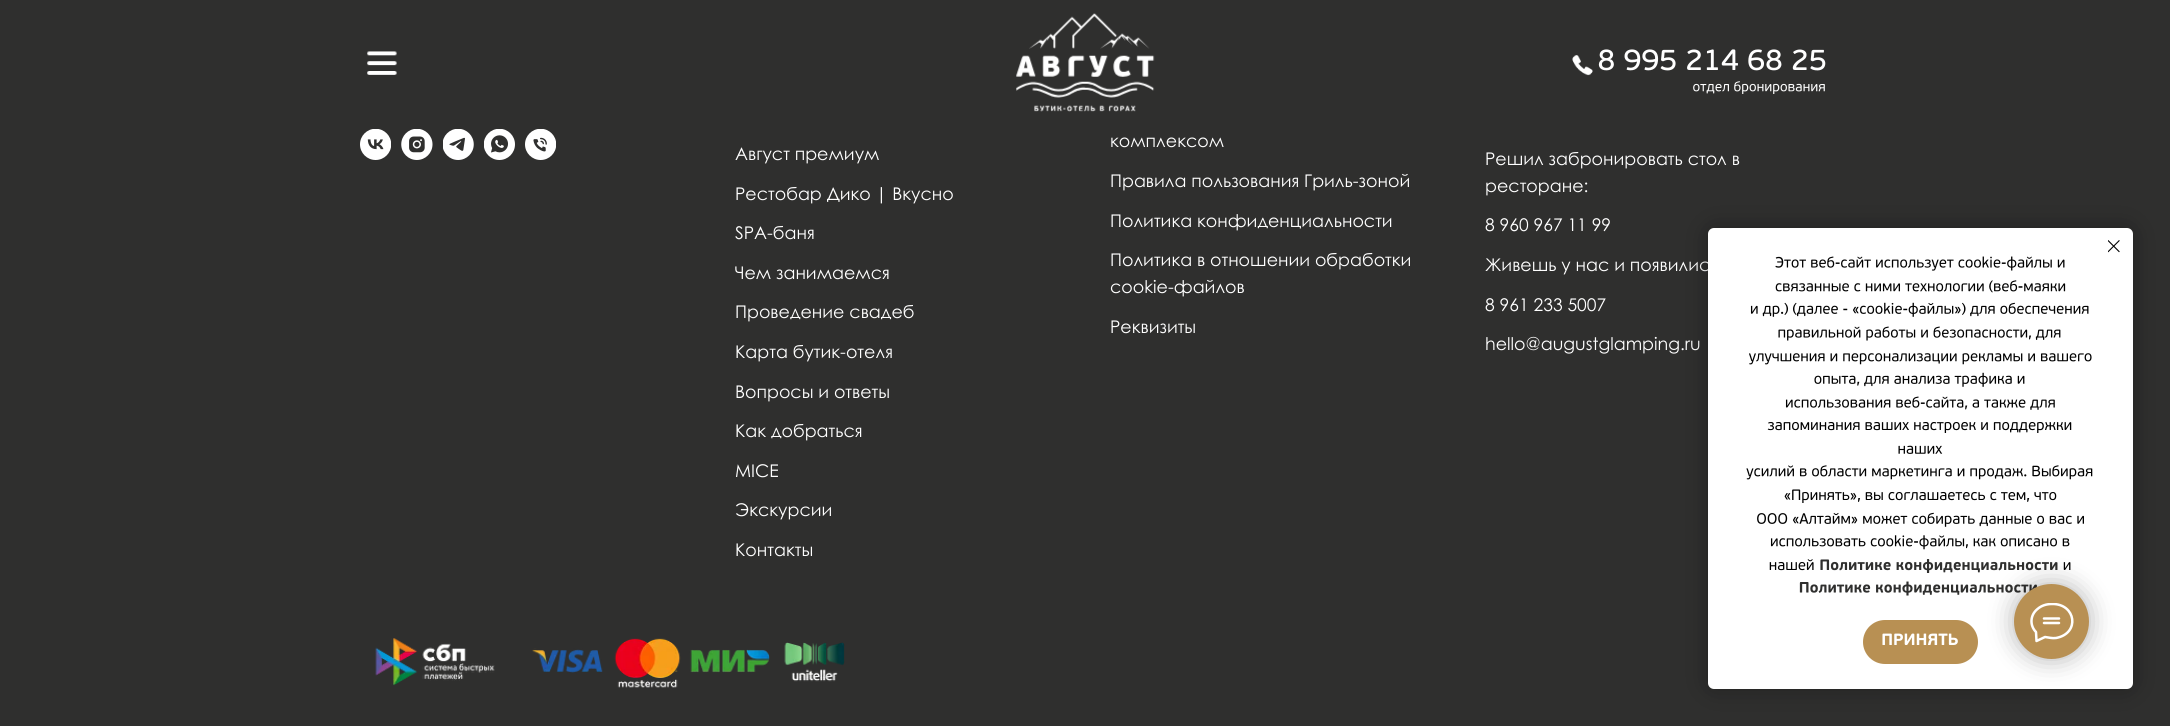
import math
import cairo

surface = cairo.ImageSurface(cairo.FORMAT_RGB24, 2170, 726)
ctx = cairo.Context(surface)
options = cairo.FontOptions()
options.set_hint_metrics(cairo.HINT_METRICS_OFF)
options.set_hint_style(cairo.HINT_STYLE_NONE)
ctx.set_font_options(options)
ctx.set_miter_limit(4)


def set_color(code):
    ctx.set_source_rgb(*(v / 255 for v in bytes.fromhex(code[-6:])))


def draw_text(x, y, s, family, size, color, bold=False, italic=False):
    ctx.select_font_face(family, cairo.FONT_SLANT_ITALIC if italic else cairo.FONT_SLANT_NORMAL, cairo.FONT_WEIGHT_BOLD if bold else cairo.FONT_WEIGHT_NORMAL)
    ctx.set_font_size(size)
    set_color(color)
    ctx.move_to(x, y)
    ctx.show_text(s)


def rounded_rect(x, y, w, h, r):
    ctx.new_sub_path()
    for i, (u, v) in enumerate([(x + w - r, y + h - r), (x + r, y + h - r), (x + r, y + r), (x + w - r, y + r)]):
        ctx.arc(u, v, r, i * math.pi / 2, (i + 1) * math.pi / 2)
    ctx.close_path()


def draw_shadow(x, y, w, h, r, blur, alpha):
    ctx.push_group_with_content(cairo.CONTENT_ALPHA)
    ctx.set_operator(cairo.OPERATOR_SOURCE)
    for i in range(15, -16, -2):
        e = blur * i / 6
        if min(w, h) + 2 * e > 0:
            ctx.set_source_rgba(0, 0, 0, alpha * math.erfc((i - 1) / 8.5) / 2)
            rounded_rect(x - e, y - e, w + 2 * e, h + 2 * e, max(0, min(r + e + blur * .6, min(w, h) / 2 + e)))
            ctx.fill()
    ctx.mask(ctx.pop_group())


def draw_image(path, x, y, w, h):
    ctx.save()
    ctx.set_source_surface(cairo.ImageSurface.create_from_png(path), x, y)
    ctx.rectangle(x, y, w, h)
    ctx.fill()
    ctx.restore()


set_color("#2f2f2e")
ctx.paint()
draw_image("assets/img1.png", 367, 51, 30, 24)
draw_image("assets/img2.png", 1016, 13, 139, 99)
draw_image("assets/img3.png", 1572, 55, 21, 21)
draw_image("assets/img4.png", 1598, 49, 228, 22)
draw_image("assets/img5.png", 1693, 81, 132, 13)
draw_image("assets/img6.png", 360, 129, 31, 31)
draw_image("assets/img7.png", 401, 129, 32, 31)
draw_image("assets/img8.png", 443, 129, 31, 31)
draw_image("assets/img9.png", 484, 129, 31, 31)
draw_image("assets/img10.png", 525, 129, 31, 31)
draw_text(735, 160, "Август премиум", "Century Gothic", 17.5, "#ffffff")
draw_text(735, 200, "Рестобар Дико | Вкусно", "Century Gothic", 17.5, "#ffffff")
draw_text(735, 239, "SPA-баня", "Century Gothic", 17.5, "#ffffff")
draw_text(735, 279, "Чем занимаемся", "Century Gothic", 17.5, "#ffffff")
draw_text(735, 318, "Проведение свадеб", "Century Gothic", 17.5, "#ffffff")
draw_text(735, 358, "Карта бутик-отеля", "Century Gothic", 17.5, "#ffffff")
draw_text(735, 398, "Вопросы и ответы", "Century Gothic", 17.5, "#ffffff")
draw_text(735, 437, "Как добраться", "Century Gothic", 17.5, "#ffffff")
draw_text(735, 477, "MICE", "Century Gothic", 17.5, "#ffffff")
draw_text(735, 516, "Экскурсии", "Century Gothic", 17.5, "#ffffff")
draw_text(735, 556, "Контакты", "Century Gothic", 17.5, "#ffffff")
draw_text(1110, 147, "комплексом", "Century Gothic", 17.5, "#ffffff")
draw_text(1110, 187, "Правила пользования Гриль-зоной", "Century Gothic", 17.5, "#ffffff")
draw_text(1110, 227, "Политика конфиденциальности", "Century Gothic", 17.5, "#ffffff")
draw_text(1110, 266, "Политика в отношении обработки", "Century Gothic", 17.5, "#ffffff")
draw_text(1110, 293, "cookie-файлов", "Century Gothic", 17.5, "#ffffff")
draw_text(1110, 333, "Реквизиты", "Century Gothic", 17.5, "#ffffff")
draw_text(1485, 165, "Решил забронировать стол в", "Century Gothic", 17.5, "#ffffff")
draw_text(1485, 192, "ресторане:", "Century Gothic", 17.5, "#ffffff")
draw_text(1485, 231, "8 960 967 11 99", "Century Gothic", 17.5, "#ffffff")
draw_text(1485, 271, "Живешь у нас и появилис", "Century Gothic", 17.5, "#ffffff")
draw_text(1485, 311, "8 961 233 5007", "Century Gothic", 17.5, "#ffffff")
draw_text(1485, 350, "hello@augustglamping.ru", "Century Gothic", 17.5, "#ffffff")
set_color("#000000")
draw_shadow(1708, 228, 425, 461, 6, 12.5, 0.3)
set_color("#ffffff")
rounded_rect(1708, 228, 425, 461, 6)
ctx.fill()
draw_image("assets/img11.png", 2108, 240, 12, 13)
draw_image("assets/img12.png", 1775, 256, 290, 15)
draw_image("assets/img13.png", 1775, 280, 291, 13)
draw_image("assets/img14.png", 1750, 302, 339, 15)
draw_image("assets/img15.png", 1778, 326, 283, 15)
draw_image("assets/img16.png", 1749, 353, 343, 12)
draw_image("assets/img17.png", 1814, 372, 211, 15)
draw_image("assets/img18.png", 1785, 396, 270, 14)
draw_image("assets/img19.png", 1767, 422, 305, 11)
draw_image("assets/img20.png", 1898, 445, 45, 9)
draw_image("assets/img21.png", 1746, 465, 347, 15)
draw_image("assets/img22.png", 1784, 489, 273, 14)
draw_image("assets/img23.png", 1757, 512, 327, 15)
draw_image("assets/img24.png", 1770, 535, 300, 15)
draw_image("assets/img25.png", 1769, 559, 45, 12)
draw_image("assets/img26.png", 1820, 559, 238, 14)
draw_image("assets/img27.png", 2063, 562, 8, 8)
draw_image("assets/img28.png", 1799, 581, 238, 15)
set_color("#b89053")
rounded_rect(1863, 620, 115, 44, 22)
ctx.fill()
draw_image("assets/img29.png", 1882, 633, 76, 12)
draw_image("assets/img30.png", 375, 638, 120, 48)
draw_image("assets/img31.png", 532, 638, 313, 50)
set_color("#000000")
draw_shadow(2014, 584, 75, 75, 37.5, 12.5, 0.3)
set_color("#b89053")
ctx.arc(2051.5, 621.5, 37.5, 0, 2 * math.pi)
ctx.fill()
ctx.save()
ctx.rectangle(2030, 603, 44, 40)
ctx.clip()
ctx.new_path()
ctx.move_to(2044, 618.5)
ctx.line_to(2059, 618.5)
ctx.move_to(2044, 623)
ctx.line_to(2059, 623)
ctx.move_to(2036, 632)
ctx.curve_to(2029.5, 625.5, 2030, 615, 2037.5, 609)
ctx.curve_to(2041.5, 605.5, 2046.5, 604, 2052, 604)
ctx.curve_to(2076, 603.5, 2080.5, 633.5, 2056, 638)
ctx.curve_to(2052, 638.5, 2049, 637.5, 2045, 637)
ctx.line_to(2036.5, 641)
ctx.close_path()
set_color("#ffffff")
ctx.set_line_width(2.5)
ctx.set_line_cap(cairo.LINE_CAP_ROUND)
ctx.set_line_join(cairo.LINE_JOIN_ROUND)
ctx.stroke()
ctx.restore()
surface.write_to_png("output.png")
